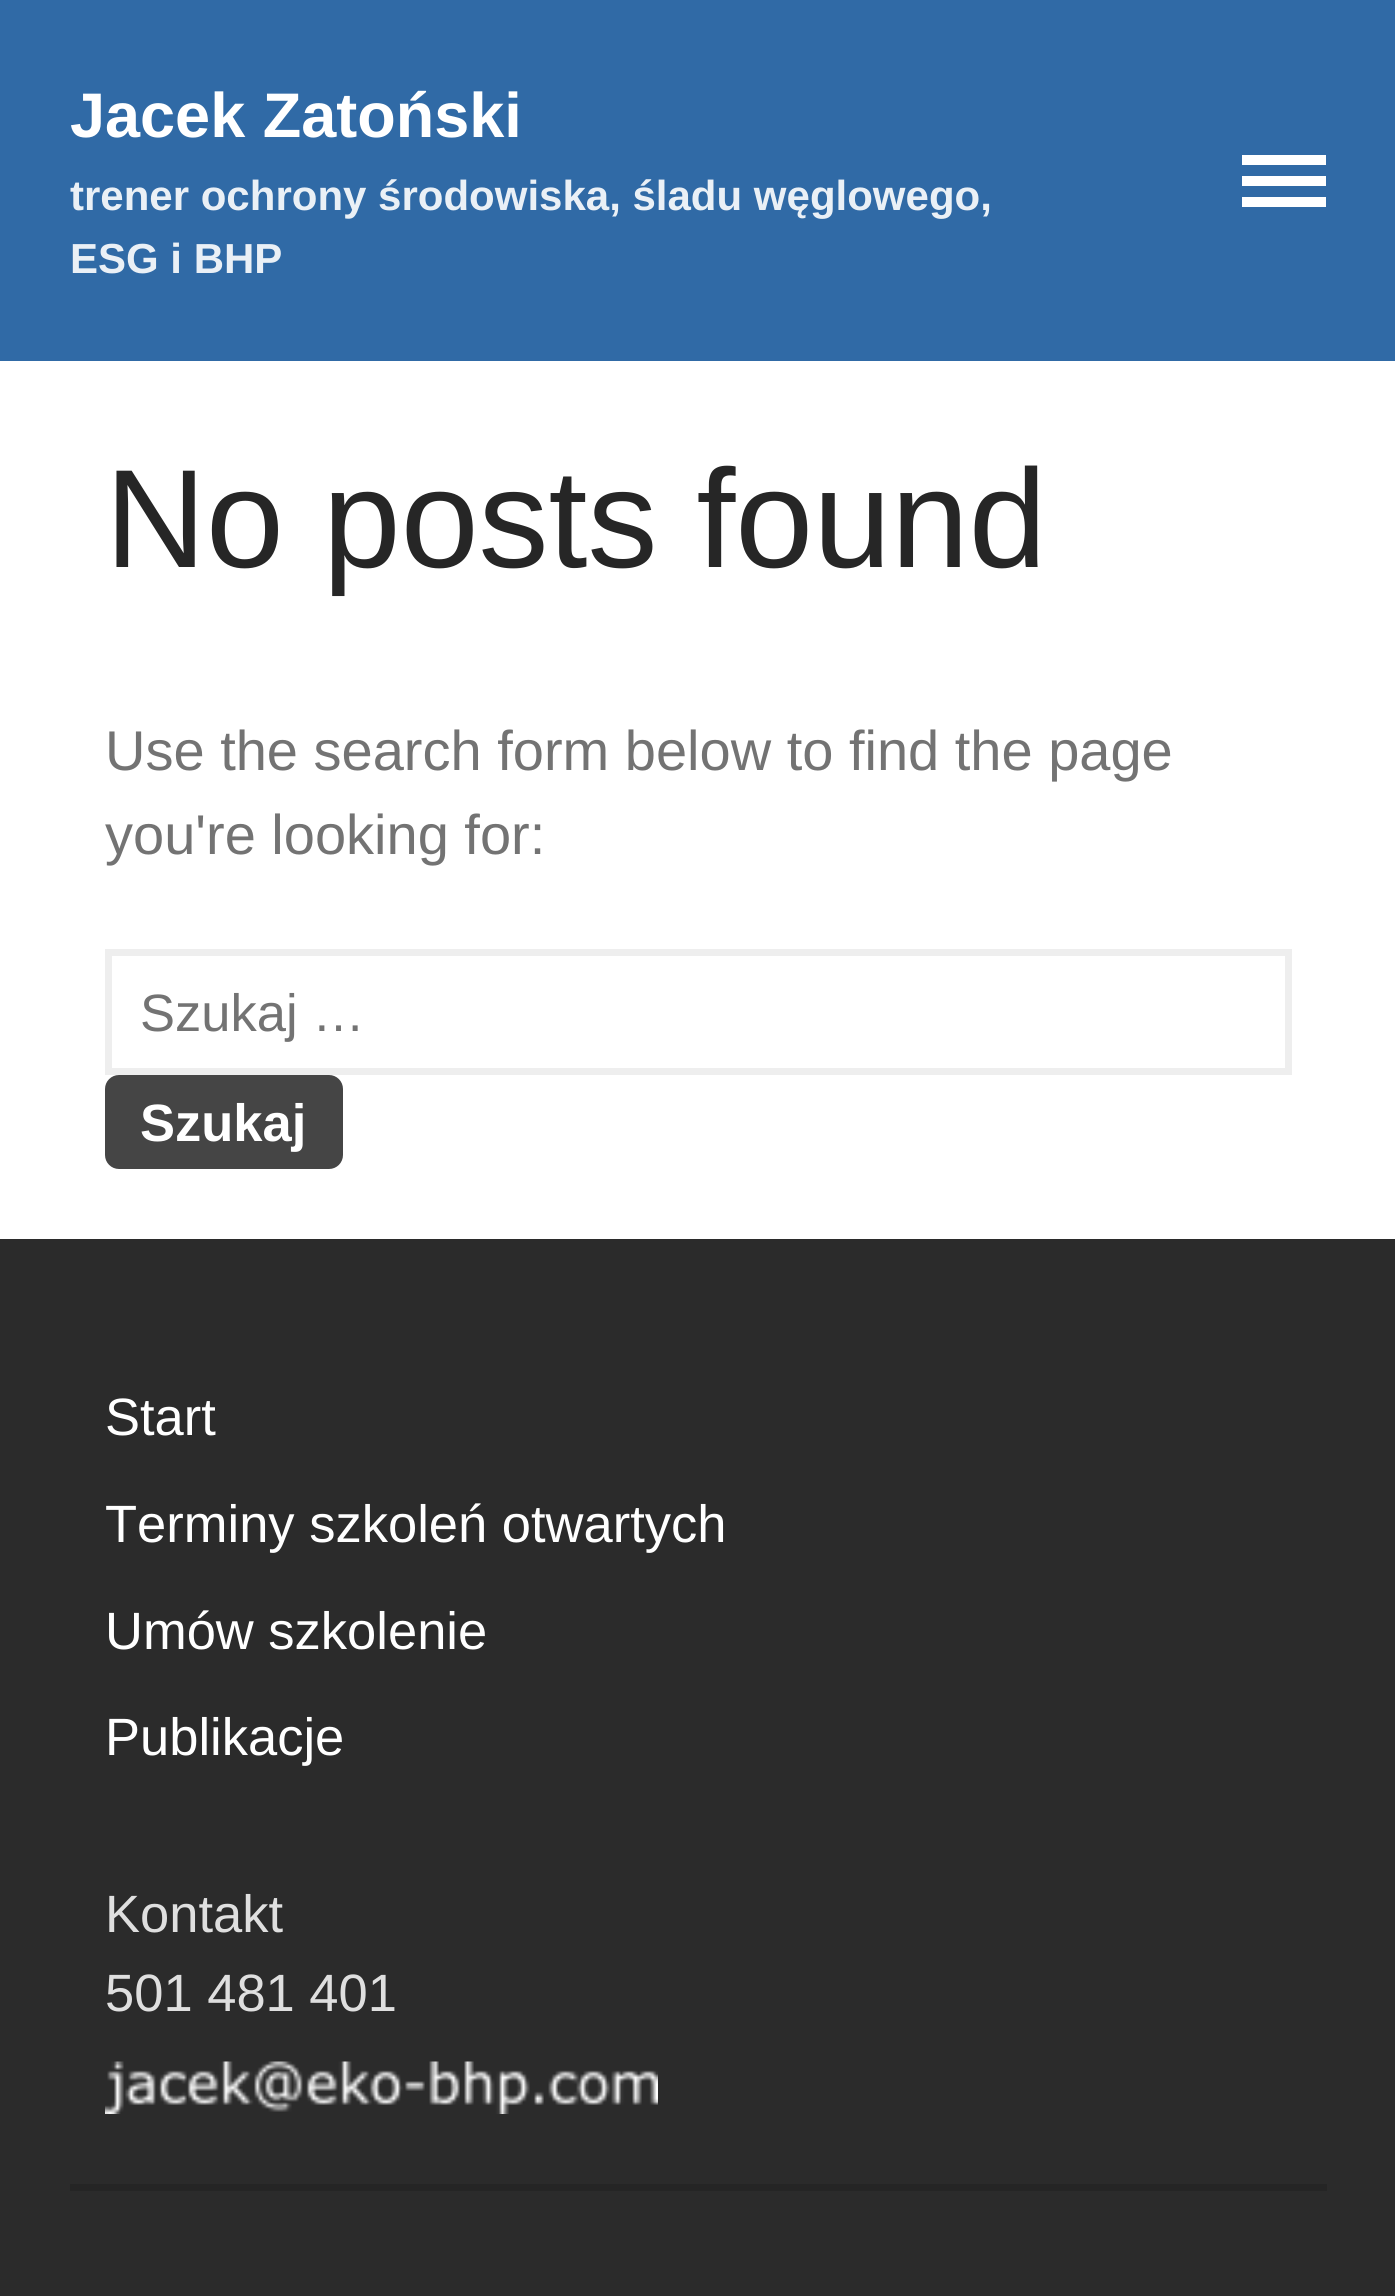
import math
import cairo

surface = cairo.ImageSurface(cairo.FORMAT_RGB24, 1395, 2296)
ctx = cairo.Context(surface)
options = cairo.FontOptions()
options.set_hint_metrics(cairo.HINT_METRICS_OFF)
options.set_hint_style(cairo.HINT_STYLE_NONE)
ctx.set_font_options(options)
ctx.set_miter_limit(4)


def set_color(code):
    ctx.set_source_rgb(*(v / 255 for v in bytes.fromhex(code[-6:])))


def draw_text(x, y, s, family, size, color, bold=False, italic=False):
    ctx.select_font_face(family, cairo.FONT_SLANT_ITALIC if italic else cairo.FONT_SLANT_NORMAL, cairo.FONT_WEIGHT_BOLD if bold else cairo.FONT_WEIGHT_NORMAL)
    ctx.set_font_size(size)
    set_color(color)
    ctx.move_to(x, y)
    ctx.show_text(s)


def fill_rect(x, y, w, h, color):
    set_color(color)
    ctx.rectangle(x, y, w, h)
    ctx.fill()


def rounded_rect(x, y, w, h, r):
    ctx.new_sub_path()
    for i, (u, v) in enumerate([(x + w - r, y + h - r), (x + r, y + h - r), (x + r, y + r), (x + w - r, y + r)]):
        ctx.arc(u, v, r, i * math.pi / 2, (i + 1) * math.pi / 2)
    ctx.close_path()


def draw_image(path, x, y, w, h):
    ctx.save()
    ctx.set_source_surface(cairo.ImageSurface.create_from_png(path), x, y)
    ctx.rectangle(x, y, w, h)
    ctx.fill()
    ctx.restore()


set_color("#ffffff")
ctx.paint()
fill_rect(0, 0, 1395, 361, "#306aa6")
draw_text(70, 137, "Jacek Zatoński", "Liberation Sans", 63, "#ffffff", bold=True)
draw_text(70, 210, "trener ochrony środowiska, śladu węglowego,", "Liberation Sans", 42, "#eaf0f6", bold=True)
draw_text(70, 273, "ESG i BHP", "Liberation Sans", 42, "#eaf0f6", bold=True)
set_color("#ffffff")
ctx.new_path()
ctx.move_to(1242, 155)
ctx.line_to(1242, 165)
ctx.line_to(1326, 165)
ctx.line_to(1326, 155)
ctx.close_path()
ctx.move_to(1242, 176)
ctx.line_to(1242, 186)
ctx.line_to(1326, 186)
ctx.line_to(1326, 176)
ctx.close_path()
ctx.move_to(1242, 197)
ctx.line_to(1242, 207)
ctx.line_to(1326, 207)
ctx.line_to(1326, 197)
ctx.close_path()
ctx.fill()
draw_text(105, 567, "No posts found", "Liberation Sans", 140, "#262626")
draw_text(105, 770, "Use the search form below to find the page", "Liberation Sans", 56, "#737373")
draw_text(105, 854, "you're looking for:", "Liberation Sans", 56, "#737373")
ctx.rectangle(108.5, 952.5, 1180, 119)
set_color("#eeeeee")
ctx.set_line_width(7)
ctx.stroke()
draw_text(140, 1031, "Szukaj …", "Liberation Sans", 52.5, "#737373")
set_color("#454545")
rounded_rect(105, 1075, 238, 94, 14)
ctx.fill()
draw_text(140, 1141, "Szukaj", "Liberation Sans", 52.5, "#ffffff", bold=True)
fill_rect(0, 1239, 1395, 1057, "#2b2b2b")
draw_text(105, 1435, "Start", "Liberation Sans", 52.5, "#ffffff")
draw_text(105, 1542, "Terminy szkoleń otwartych", "Liberation Sans", 52.5, "#ffffff")
draw_text(105, 1649, "Umów szkolenie", "Liberation Sans", 52.5, "#ffffff")
draw_text(105, 1755, "Publikacje", "Liberation Sans", 52.5, "#ffffff")
draw_text(105, 1932, "Kontakt", "Liberation Sans", 52.5, "#dfdfdf")
draw_text(105, 2011, "501 481 401", "Liberation Sans", 52.5, "#dfdfdf")
draw_image("assets/img1.png", 105, 2061, 553, 53)
fill_rect(70, 2184, 1257, 7, "#252525")
surface.write_to_png("output.png")
